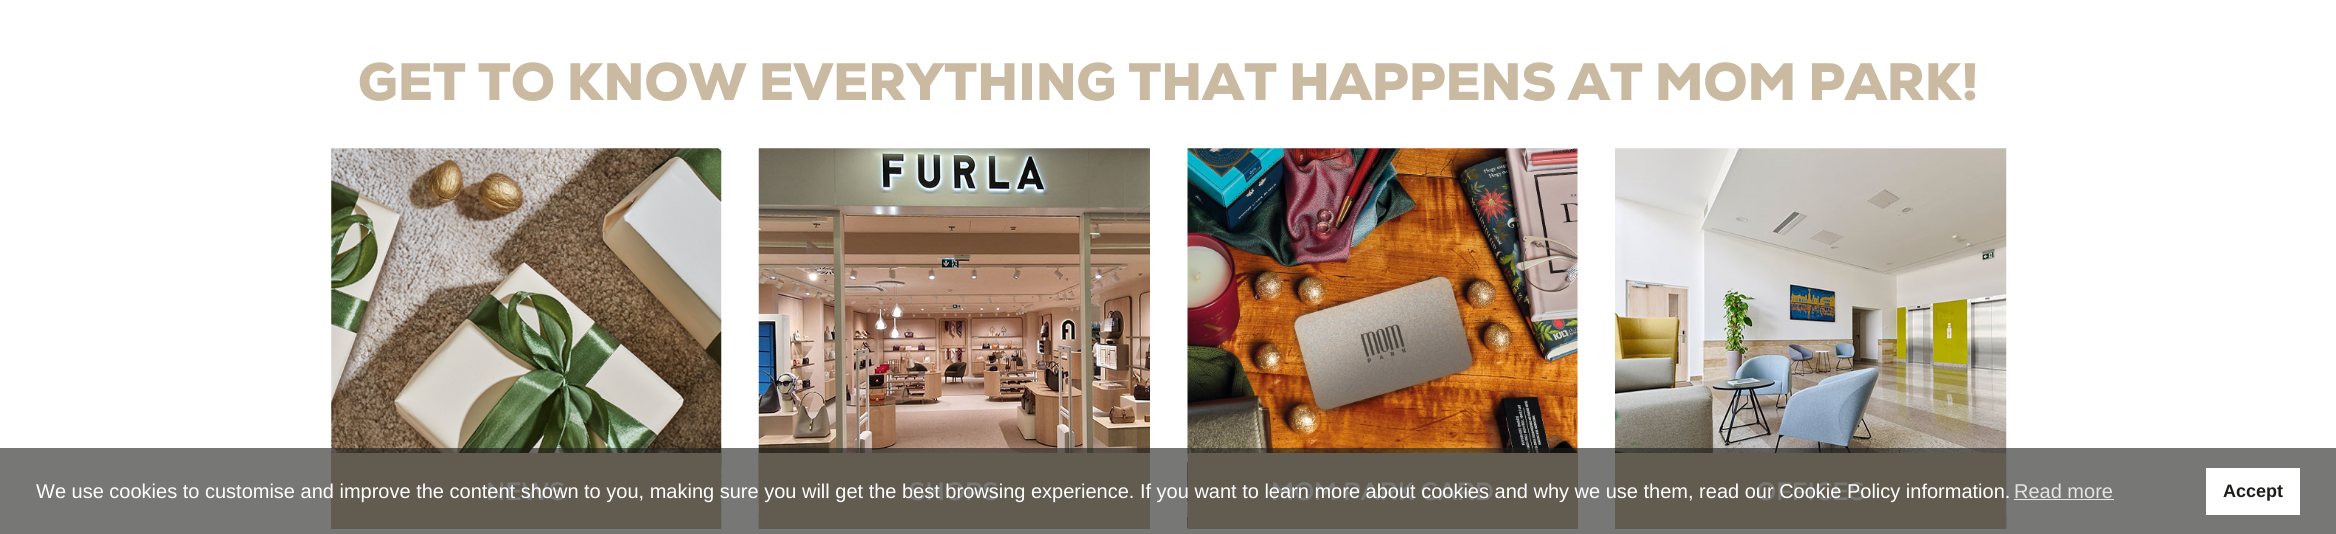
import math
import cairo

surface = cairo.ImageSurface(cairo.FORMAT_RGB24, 2336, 534)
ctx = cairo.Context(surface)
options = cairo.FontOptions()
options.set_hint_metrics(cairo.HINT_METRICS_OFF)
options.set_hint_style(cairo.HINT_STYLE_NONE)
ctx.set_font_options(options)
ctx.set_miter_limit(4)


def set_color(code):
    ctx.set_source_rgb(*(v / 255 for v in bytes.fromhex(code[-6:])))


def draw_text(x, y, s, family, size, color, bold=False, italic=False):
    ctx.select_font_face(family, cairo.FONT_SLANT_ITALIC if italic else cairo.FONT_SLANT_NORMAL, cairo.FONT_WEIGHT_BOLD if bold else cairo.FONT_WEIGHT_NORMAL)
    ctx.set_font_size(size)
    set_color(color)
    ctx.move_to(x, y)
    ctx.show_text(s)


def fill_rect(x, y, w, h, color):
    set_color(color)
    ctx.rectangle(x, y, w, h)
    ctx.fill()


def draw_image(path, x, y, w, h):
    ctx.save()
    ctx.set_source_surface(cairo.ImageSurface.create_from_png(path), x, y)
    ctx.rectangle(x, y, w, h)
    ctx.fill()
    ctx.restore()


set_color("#ffffff")
ctx.paint()
draw_text(358, 100, "GET TO KNOW EVERYTHING THAT HAPPENS AT MOM PARK!", "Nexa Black", 52.5, "#c9baa1")
draw_image("assets/img1.png", 331, 148, 391, 381)
fill_rect(331, 453, 390, 76, "#c9baa1")
draw_text(486, 500, "NEWS", "Nexa", 25, "#ffffff", bold=True)
draw_image("assets/img2.png", 758, 148, 392, 381)
fill_rect(759, 453, 391, 76, "#c9baa1")
draw_text(909, 500, "SHOPS", "Nexa", 25, "#ffffff", bold=True)
draw_image("assets/img3.png", 1187, 148, 391, 381)
fill_rect(1188, 453, 390, 76, "#c9baa1")
draw_text(1271, 500, "MOM PARK CARD", "Nexa", 25, "#ffffff", bold=True)
draw_image("assets/img4.png", 1615, 148, 392, 381)
fill_rect(1615, 453, 391, 76, "#c9baa1")
draw_text(1756, 500, "OFFICES", "Nexa", 25, "#ffffff", bold=True)
ctx.set_source_rgba(0.114, 0.114, 0.106, 0.6)
ctx.rectangle(0, 448, 2336, 86)
ctx.fill()
draw_text(36, 498, "We use cookies to customise and improve the content shown to you, making sure you will get the best browsing experience. If you want to learn more about cookies and why we use them, read our Cookie Policy information.", "Liberation Sans", 20, "#ffffff")
draw_text(2014, 498, "Read more", "Liberation Sans", 20, "#e4e4e4")
fill_rect(2014, 499, 100, 1, "#e4e4e4")
fill_rect(2206, 468, 94, 47, "#ffffff")
draw_text(2223, 497, "Accept", "Liberation Sans", 18, "#1d1d1b", bold=True)
surface.write_to_png("output.png")
